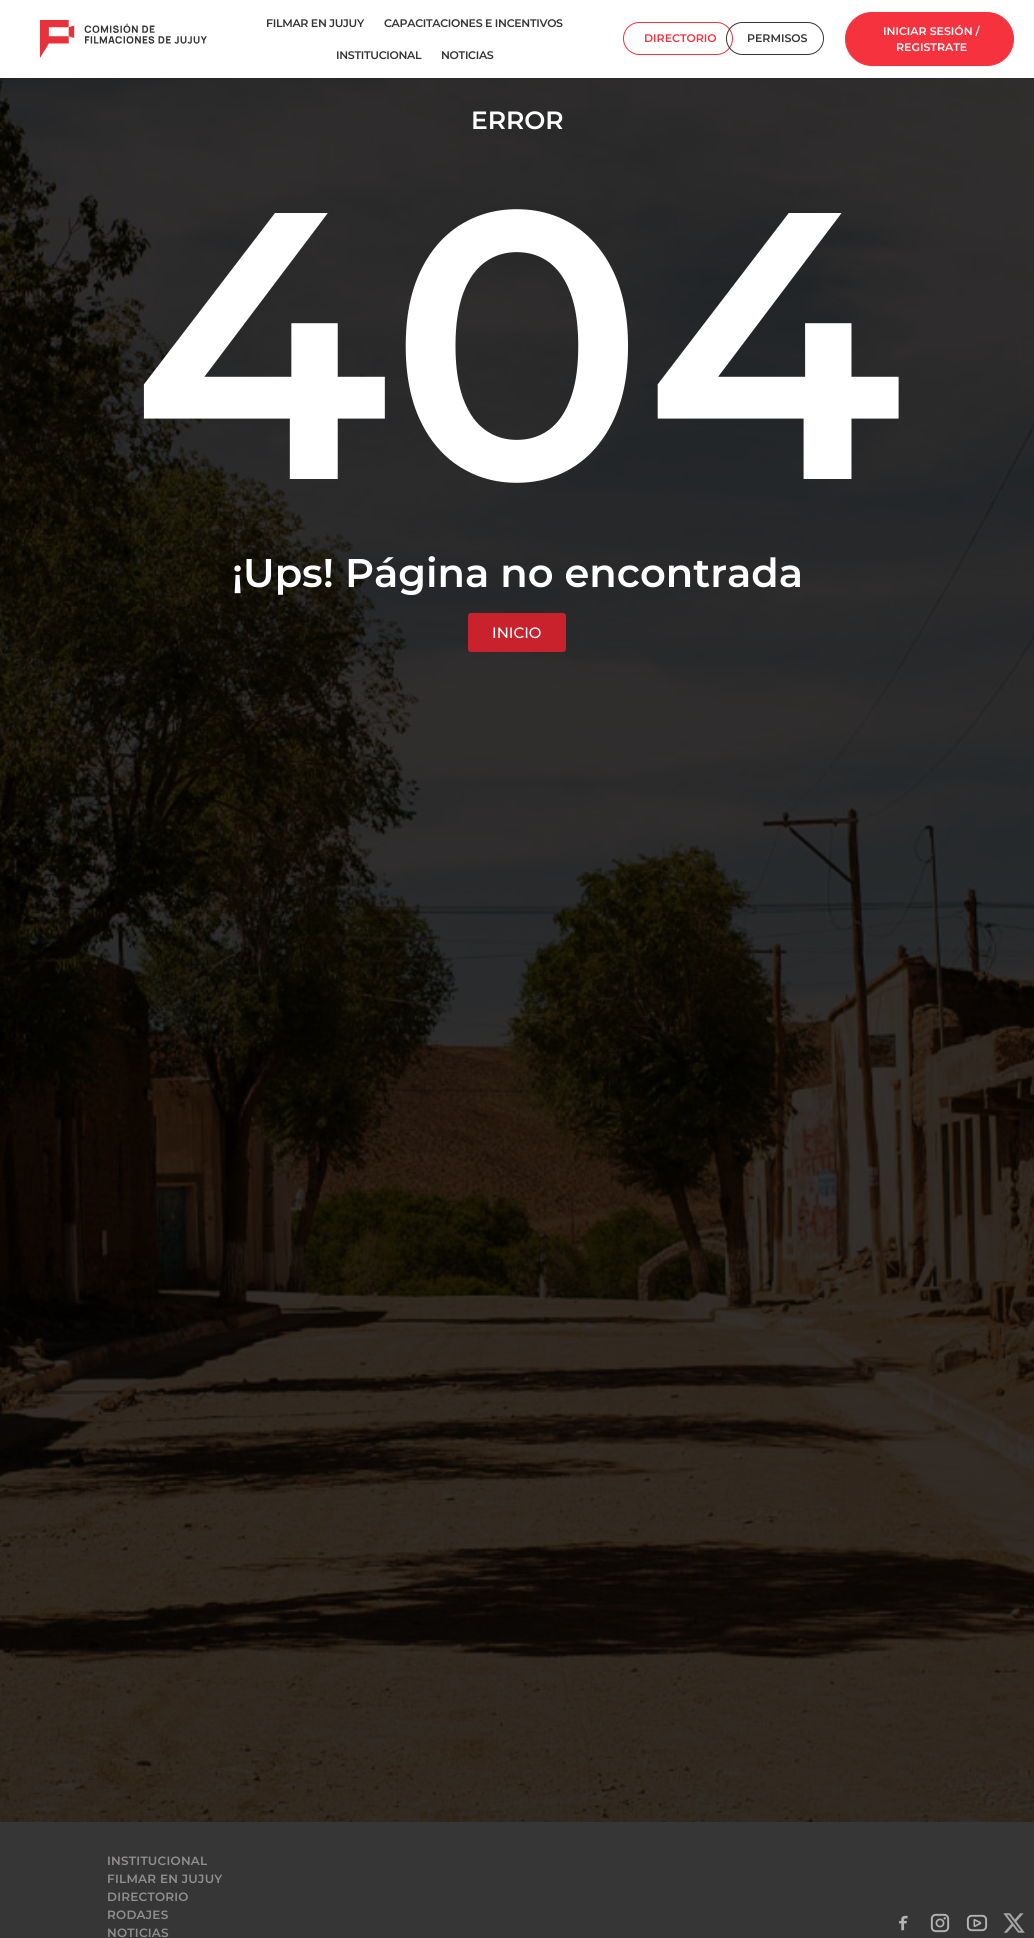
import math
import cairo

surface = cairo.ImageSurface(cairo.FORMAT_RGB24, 1034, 1938)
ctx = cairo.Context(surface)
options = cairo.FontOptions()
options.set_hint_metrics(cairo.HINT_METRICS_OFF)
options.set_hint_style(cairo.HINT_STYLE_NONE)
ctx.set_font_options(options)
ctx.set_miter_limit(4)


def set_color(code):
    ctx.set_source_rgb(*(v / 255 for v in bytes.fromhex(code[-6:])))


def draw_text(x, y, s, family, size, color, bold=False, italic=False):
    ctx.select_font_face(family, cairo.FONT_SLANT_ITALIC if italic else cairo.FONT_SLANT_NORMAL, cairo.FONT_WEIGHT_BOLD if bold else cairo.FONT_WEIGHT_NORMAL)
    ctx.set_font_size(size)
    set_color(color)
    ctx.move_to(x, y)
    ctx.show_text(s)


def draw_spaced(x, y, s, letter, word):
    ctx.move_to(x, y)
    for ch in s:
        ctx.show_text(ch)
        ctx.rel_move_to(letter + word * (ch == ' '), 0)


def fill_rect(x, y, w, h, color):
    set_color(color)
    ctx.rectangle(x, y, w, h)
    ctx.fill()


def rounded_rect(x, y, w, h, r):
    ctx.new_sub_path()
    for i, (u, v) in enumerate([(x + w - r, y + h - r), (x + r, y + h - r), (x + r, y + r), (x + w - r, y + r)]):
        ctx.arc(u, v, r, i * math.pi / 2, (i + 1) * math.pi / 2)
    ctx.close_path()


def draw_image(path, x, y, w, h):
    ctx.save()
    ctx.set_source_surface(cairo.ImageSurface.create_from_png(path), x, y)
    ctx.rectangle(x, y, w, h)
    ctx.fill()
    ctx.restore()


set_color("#ffffff")
ctx.paint()
draw_image("assets/img1.png", 40, 20, 167, 38)
ctx.select_font_face("Montserrat SemiBold")
ctx.set_font_size(11)
set_color("#353535")
draw_spaced(266, 27, "FILMAR EN JUJUY", -0.3, 0)
draw_spaced(384, 27, "CAPACITACIONES E INCENTIVOS", -0.3, 0)
draw_spaced(336, 59, "INSTITUCIONAL", -0.3, 0)
draw_spaced(441, 59, "NOTICIAS", -0.3, 0)
rounded_rect(623.5, 22.5, 109, 32, 16)
set_color("#f6323f")
ctx.set_line_width(1)
ctx.stroke()
draw_text(644, 42, "DIRECTORIO", "Montserrat SemiBold", 11, "#f6323f")
rounded_rect(726.5, 22.5, 97, 32, 16)
set_color("#353535")
ctx.stroke()
draw_text(747, 42, "PERMISOS", "Montserrat SemiBold", 11, "#353535")
set_color("#f6323f")
rounded_rect(845.5, 12.5, 168, 53, 26.5)
ctx.fill_preserve()
ctx.stroke()
draw_text(883, 35, "INICIAR SESIÓN /", "Montserrat SemiBold", 11, "#ffffff")
draw_text(896, 51, "REGISTRATE", "Montserrat SemiBold", 11, "#ffffff")
draw_image("assets/img2.png", 0, 78, 1034, 1744)
draw_text(471, 129, "ERROR", "Montserrat SemiBold", 25, "#ffffff")
draw_text(131, 479, "404", "Montserrat SemiBold", 380, "#ffffff")
draw_text(232, 587, "¡Ups! Página no encontrada", "Montserrat SemiBold", 40, "#ffffff")
set_color("#ca222c")
rounded_rect(468, 613, 98, 39, 3)
ctx.fill()
draw_text(492, 638, "INICIO", "Montserrat Medium", 15, "#ffffff")
fill_rect(0, 1822, 1034, 116, "#363636")
ctx.select_font_face("Montserrat SemiBold")
ctx.set_font_size(12)
set_color("#918e8e")
draw_spaced(107, 1865, "INSTITUCIONAL", 0.25, 0)
draw_spaced(107, 1883, "FILMAR EN JUJUY", 0.25, 0)
draw_spaced(107, 1901, "DIRECTORIO", 0.25, 0)
draw_spaced(107, 1919, "RODAJES", 0.25, 0)
draw_spaced(107, 1937, "NOTICIAS", 0.25, 0)
draw_image("assets/img3.png", 899, 1915, 9, 16)
draw_image("assets/img4.png", 930, 1913, 20, 20)
draw_image("assets/img5.png", 966, 1914, 22, 18)
draw_image("assets/img6.png", 1003, 1913, 22, 20)
surface.write_to_png("output.png")
